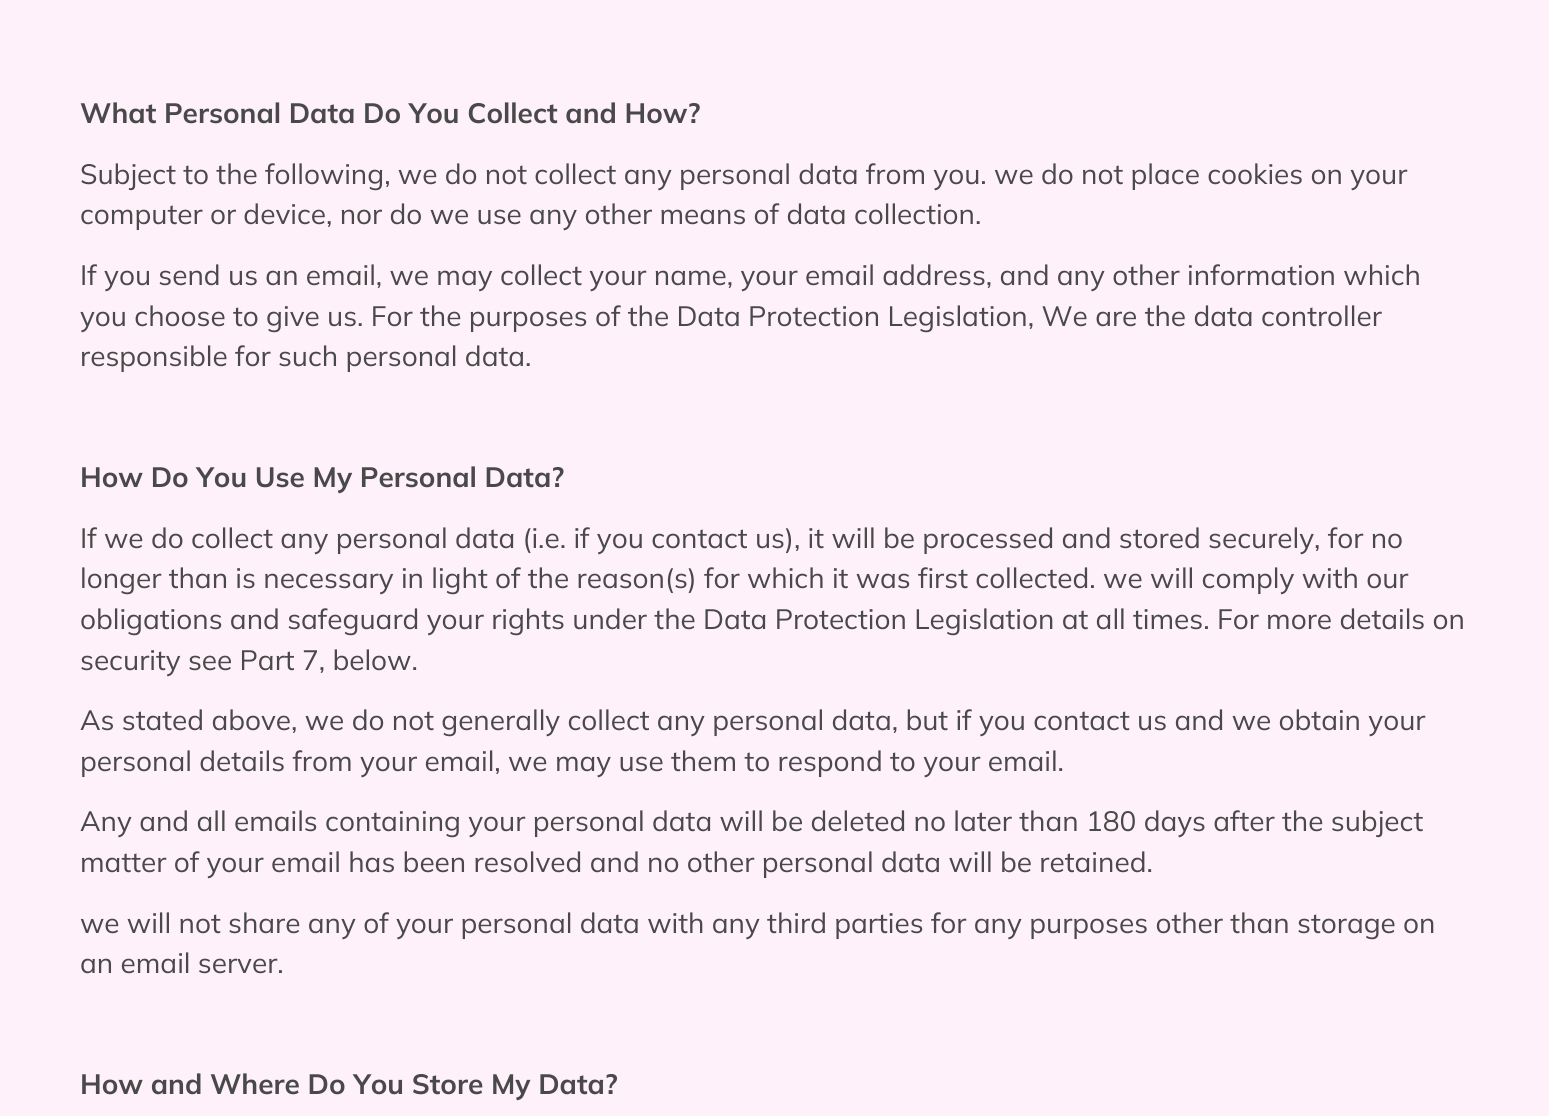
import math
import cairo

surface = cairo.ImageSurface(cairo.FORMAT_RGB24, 1549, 1116)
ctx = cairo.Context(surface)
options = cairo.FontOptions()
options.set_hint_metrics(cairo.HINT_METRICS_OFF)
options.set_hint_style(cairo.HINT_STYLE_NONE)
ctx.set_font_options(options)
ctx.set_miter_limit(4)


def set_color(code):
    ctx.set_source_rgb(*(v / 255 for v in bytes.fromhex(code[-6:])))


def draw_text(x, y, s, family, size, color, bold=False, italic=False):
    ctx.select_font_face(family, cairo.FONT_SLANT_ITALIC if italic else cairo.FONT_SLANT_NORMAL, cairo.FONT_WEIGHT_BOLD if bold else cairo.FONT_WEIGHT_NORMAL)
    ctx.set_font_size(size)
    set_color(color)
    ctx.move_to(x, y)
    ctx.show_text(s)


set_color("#fff1fa")
ctx.paint()
draw_text(80, 123, "What Personal Data Do You Collect and How?", "Mulish", 28, "#494949", bold=True)
draw_text(80, 184, "Subject to the following, we do not collect any personal data from you. we do not place cookies on your", "Mulish", 28, "#494949")
draw_text(80, 224, "computer or device, nor do we use any other means of data collection.", "Mulish", 28, "#494949")
draw_text(80, 285, "If you send us an email, we may collect your name, your email address, and any other information which", "Mulish", 28, "#494949")
draw_text(80, 326, "you choose to give us. For the purposes of the Data Protection Legislation, We are the data controller", "Mulish", 28, "#494949")
draw_text(80, 366, "responsible for such personal data.", "Mulish", 28, "#494949")
draw_text(80, 487, "How Do You Use My Personal Data?", "Mulish", 28, "#494949", bold=True)
draw_text(80, 548, "If we do collect any personal data (i.e. if you contact us), it will be processed and stored securely, for no", "Mulish", 28, "#494949")
draw_text(80, 588, "longer than is necessary in light of the reason(s) for which it was first collected. we will comply with our", "Mulish", 28, "#494949")
draw_text(80, 629, "obligations and safeguard your rights under the Data Protection Legislation at all times. For more details on", "Mulish", 28, "#494949")
draw_text(80, 670, "security see Part 7, below.", "Mulish", 28, "#494949")
draw_text(80, 730, "As stated above, we do not generally collect any personal data, but if you contact us and we obtain your", "Mulish", 28, "#494949")
draw_text(80, 771, "personal details from your email, we may use them to respond to your email.", "Mulish", 28, "#494949")
draw_text(80, 831, "Any and all emails containing your personal data will be deleted no later than 180 days after the subject", "Mulish", 28, "#494949")
draw_text(80, 872, "matter of your email has been resolved and no other personal data will be retained.", "Mulish", 28, "#494949")
draw_text(80, 933, "we will not share any of your personal data with any third parties for any purposes other than storage on", "Mulish", 28, "#494949")
draw_text(80, 973, "an email server.", "Mulish", 28, "#494949")
draw_text(80, 1094, "How and Where Do You Store My Data?", "Mulish", 28, "#494949", bold=True)
surface.write_to_png("output.png")
